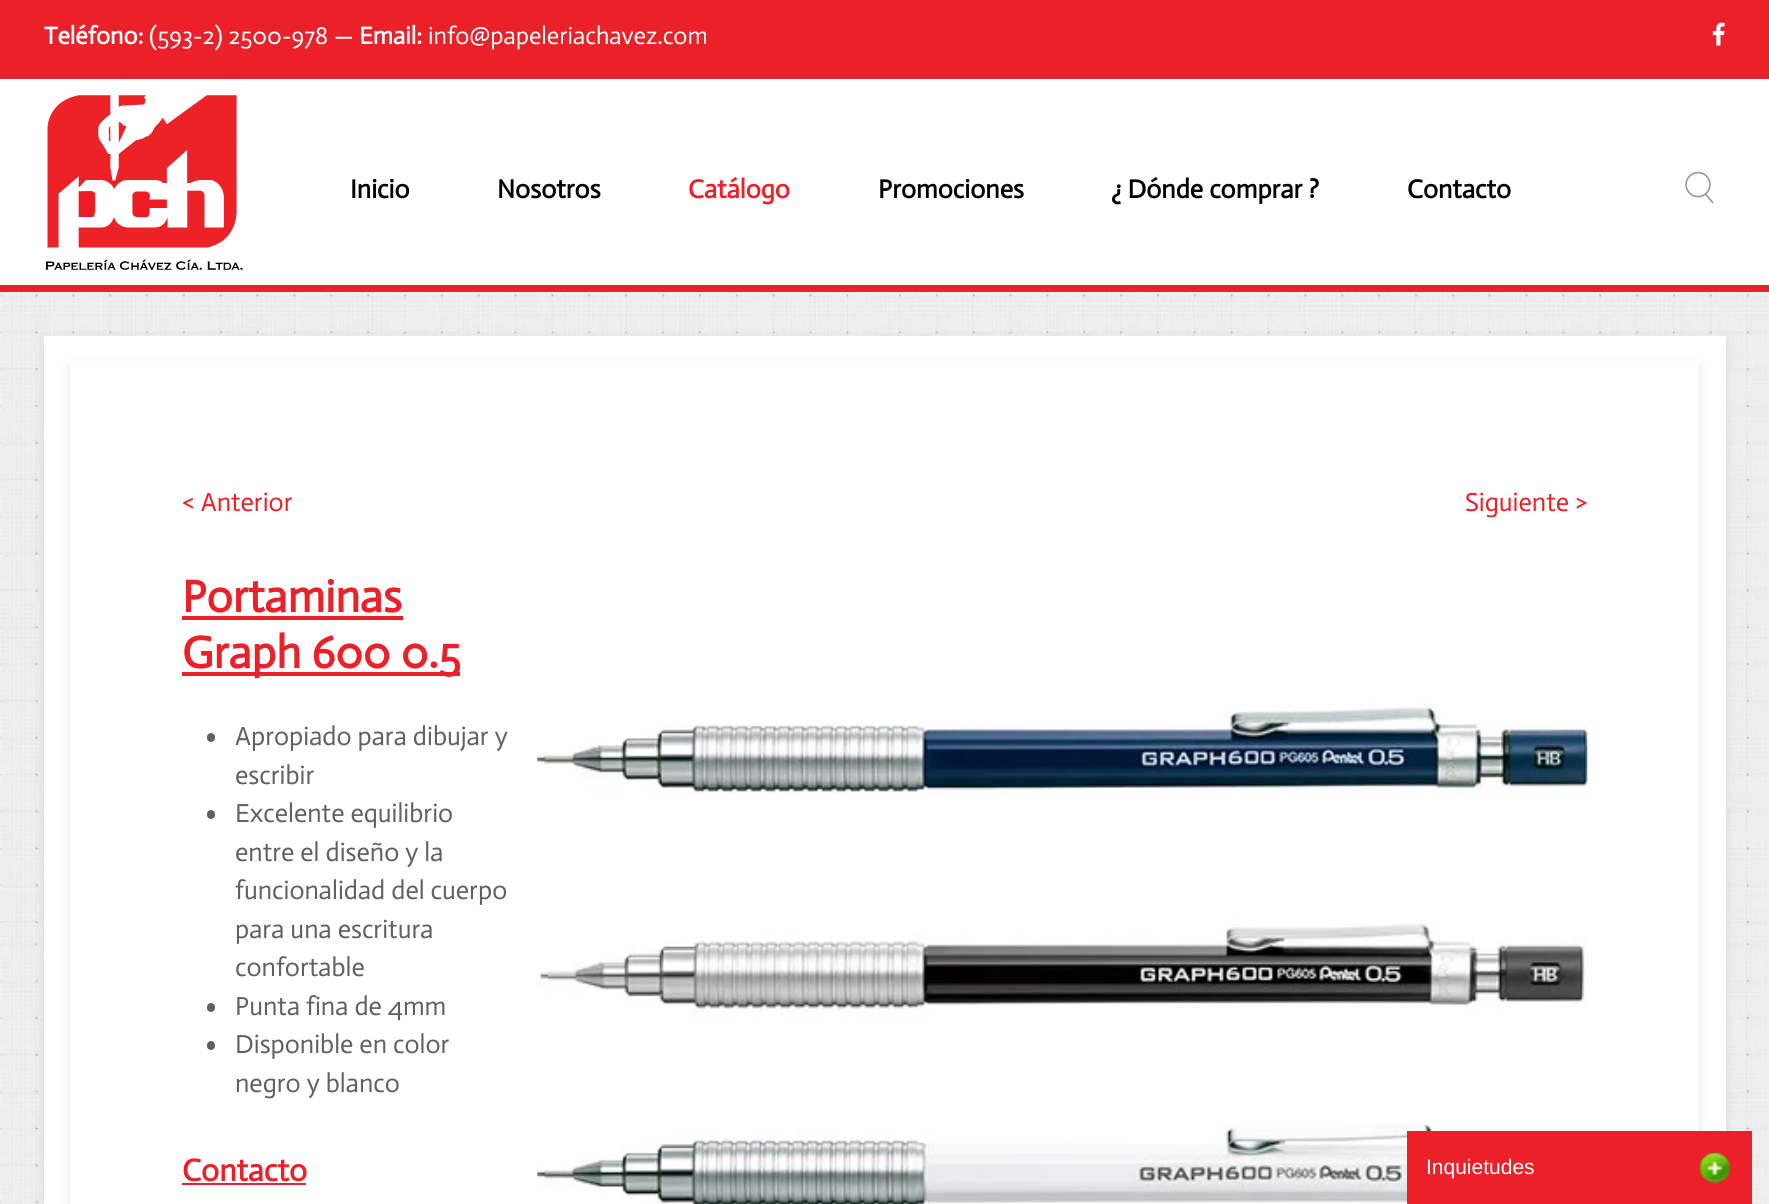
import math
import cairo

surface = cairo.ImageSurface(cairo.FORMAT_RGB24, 1769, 1204)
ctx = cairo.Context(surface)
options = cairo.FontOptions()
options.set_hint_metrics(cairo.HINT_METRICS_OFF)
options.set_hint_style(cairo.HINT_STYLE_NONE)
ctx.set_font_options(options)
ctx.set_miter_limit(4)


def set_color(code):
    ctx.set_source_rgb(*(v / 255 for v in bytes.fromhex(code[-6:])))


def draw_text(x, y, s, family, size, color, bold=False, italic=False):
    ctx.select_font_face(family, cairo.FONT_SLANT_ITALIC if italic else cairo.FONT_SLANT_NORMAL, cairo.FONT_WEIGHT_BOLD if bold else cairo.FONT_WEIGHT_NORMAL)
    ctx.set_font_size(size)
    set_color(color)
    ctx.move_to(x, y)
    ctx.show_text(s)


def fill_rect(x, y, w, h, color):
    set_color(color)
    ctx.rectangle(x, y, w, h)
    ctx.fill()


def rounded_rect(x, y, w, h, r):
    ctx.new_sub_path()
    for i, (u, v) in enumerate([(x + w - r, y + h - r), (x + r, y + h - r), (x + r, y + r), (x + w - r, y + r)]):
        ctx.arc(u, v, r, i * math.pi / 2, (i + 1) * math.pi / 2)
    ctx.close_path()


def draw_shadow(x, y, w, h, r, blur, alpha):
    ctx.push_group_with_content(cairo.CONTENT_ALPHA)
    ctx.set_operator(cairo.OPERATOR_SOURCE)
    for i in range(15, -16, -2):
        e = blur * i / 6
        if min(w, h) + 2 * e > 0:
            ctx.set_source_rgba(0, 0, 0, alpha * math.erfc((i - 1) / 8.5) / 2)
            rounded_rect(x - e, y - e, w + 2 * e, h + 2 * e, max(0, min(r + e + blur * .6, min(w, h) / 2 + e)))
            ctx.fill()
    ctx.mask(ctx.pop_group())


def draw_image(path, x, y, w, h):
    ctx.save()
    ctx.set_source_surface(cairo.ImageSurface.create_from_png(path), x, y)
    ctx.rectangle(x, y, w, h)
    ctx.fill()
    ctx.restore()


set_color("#ffffff")
ctx.paint()
draw_image("assets/img1.png", 0, 292, 1769, 912)
fill_rect(0, 0, 1769, 79, "#ec2028")
draw_text(44, 44, "Teléfono:", "Actor", 24.5, "#ffffff", bold=True)
draw_text(149, 44, "(593-2) 2500-978 —", "Actor", 24.5, "#ffffff")
draw_text(359, 44, "Email:", "Actor", 24.5, "#ffffff", bold=True)
draw_text(428, 44, "info@papeleriachavez.com", "Actor", 24.5, "#ffffff")
draw_image("assets/img2.png", 1712, 22, 13, 24)
fill_rect(0, 285, 1769, 7, "#ec2028")
draw_image("assets/img3.png", 45, 95, 198, 175)
draw_text(350, 198, "Inicio", "Actor", 26.25, "#000000", bold=True)
draw_text(497, 198, "Nosotros", "Actor", 26.25, "#000000", bold=True)
draw_text(688, 198, "Catálogo", "Actor", 26.25, "#ec2028", bold=True)
draw_text(878, 198, "Promociones", "Actor", 26.25, "#000000", bold=True)
draw_text(1111, 198, "¿ Dónde comprar ?", "Actor", 26.25, "#000000", bold=True)
draw_text(1407, 198, "Contacto", "Actor", 26.25, "#000000", bold=True)
draw_image("assets/img4.png", 1685, 171, 29, 33)
set_color("#a0a7a9")
draw_shadow(44, 340, 1682, 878, 0, 4.5, 0.3)
fill_rect(44, 336, 1682, 868, "#ffffff")
ctx.save()
ctx.set_fill_rule(cairo.FILL_RULE_EVEN_ODD)
ctx.new_path()
ctx.move_to(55, 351)
ctx.line_to(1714, 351)
ctx.line_to(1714, 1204)
ctx.line_to(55, 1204)
ctx.close_path()
ctx.move_to(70, 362)
ctx.line_to(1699, 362)
ctx.line_to(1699, 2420)
ctx.line_to(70, 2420)
ctx.close_path()
ctx.clip()
set_color("#a0a7a9")
draw_shadow(70, 366, 1629, 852, 0, 4.5, 0.3)
ctx.restore()
draw_text(182, 511, "< Anterior", "Actor", 26.25, "#ec2028")
draw_text(1465, 511, "Siguiente >", "Actor", 26.25, "#ec2028")
draw_text(182, 612, "Portaminas", "Actor", 45.5, "#ec2028", bold=True)
fill_rect(182, 616, 221, 4, "#ec2028")
fill_rect(182, 672, 278, 4, "#ec2028")
draw_text(182, 668, "Graph 600 0.5", "Actor", 45.5, "#ec2028", bold=True)
set_color("#62615f")
rounded_rect(207, 733, 8, 9, 4)
ctx.fill()
draw_text(235, 745, "Apropiado para dibujar y", "Actor", 26.25, "#62615f")
draw_text(235, 784, "escribir", "Actor", 26.25, "#62615f")
rounded_rect(207, 810, 8, 9, 4)
ctx.fill()
draw_text(235, 822, "Excelente equilibrio", "Actor", 26.25, "#62615f")
draw_text(235, 861, "entre el diseño y la", "Actor", 26.25, "#62615f")
draw_text(235, 899, "funcionalidad del cuerpo", "Actor", 26.25, "#62615f")
draw_text(235, 938, "para una escritura", "Actor", 26.25, "#62615f")
draw_text(235, 976, "confortable", "Actor", 26.25, "#62615f")
rounded_rect(207, 1003, 8, 9, 4)
ctx.fill()
draw_text(235, 1015, "Punta fina de 4mm", "Actor", 26.25, "#62615f")
rounded_rect(207, 1041, 8, 9, 4)
ctx.fill()
draw_text(235, 1053, "Disponible en color", "Actor", 26.25, "#62615f")
draw_text(235, 1092, "negro y blanco", "Actor", 26.25, "#62615f")
draw_text(182, 1181, "Contacto", "Actor", 31.5, "#ec2028", bold=True)
fill_rect(182, 1183, 124, 2, "#ec2028")
draw_image("assets/img5.png", 537, 703, 1051, 501)
fill_rect(1407, 1131, 345, 73, "#ec2028")
draw_text(1426, 1174, "Inquietudes", "Liberation Sans", 21, "#ffffff")
draw_image("assets/img6.png", 1698, 1151, 34, 33)
surface.write_to_png("output.png")
